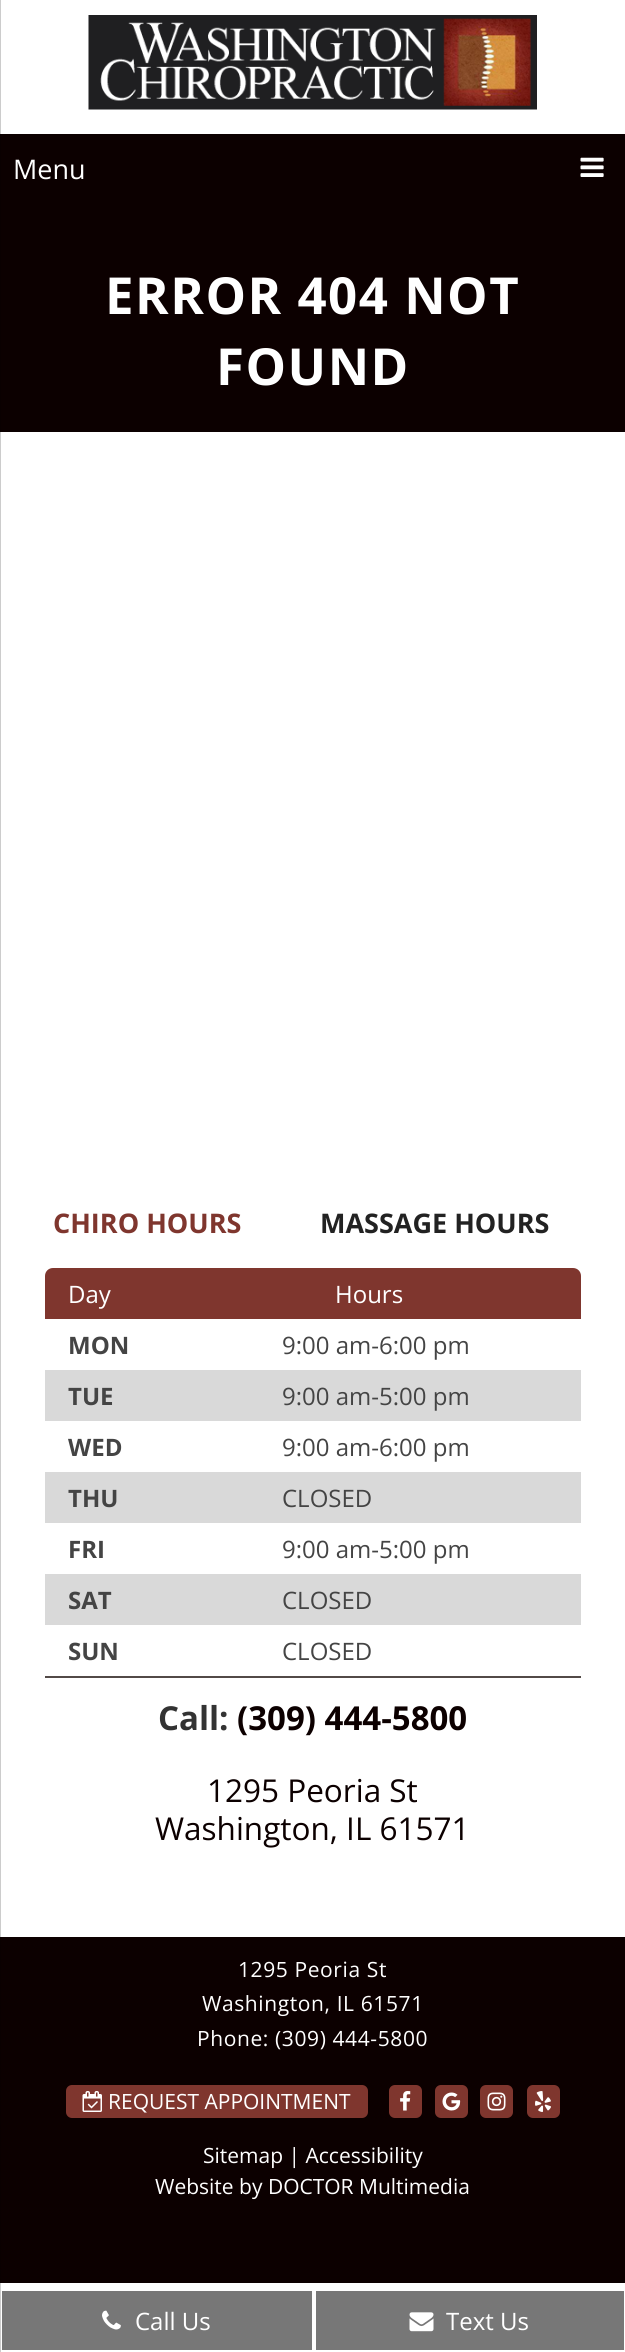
#include <cairo.h>
#include <math.h>
#include <stddef.h>


static void rgb(cairo_t *cr, int r, int g, int b)
{
	cairo_set_source_rgb(cr, r / 255.0, g / 255.0, b / 255.0);
}

static void face(cairo_t *cr, const char *family, double size, int italic, int bold)
{
	cairo_select_font_face(cr, family, italic ? CAIRO_FONT_SLANT_ITALIC : CAIRO_FONT_SLANT_NORMAL,
		bold ? CAIRO_FONT_WEIGHT_BOLD : CAIRO_FONT_WEIGHT_NORMAL);
	cairo_set_font_size(cr, size);
}

static void label(cairo_t *cr, double x, double y, const char *s)
{
	cairo_move_to(cr, x, y);
	cairo_show_text(cr, s);
}

static void tracked(cairo_t *cr, double x, double y, const char *s, double letter, double word)
{
	cairo_move_to(cr, x, y);
	while (*s) {
		char ch[5] = {0};
		int n = 0;
		do ch[n++] = *s++; while ((*s & 0xC0) == 0x80);
		cairo_show_text(cr, ch);
		cairo_rel_move_to(cr, letter + word * (*ch == ' '), 0);
	}
}

static void rect(cairo_t *cr, double x, double y, double w, double h)
{
	cairo_rectangle(cr, x, y, w, h);
	cairo_fill(cr);
}

static void rrect(cairo_t *cr, double x, double y, double w, double h, double r)
{
	cairo_new_sub_path(cr);
	cairo_arc(cr, x + w - r, y + h - r, r, 0, M_PI / 2);
	cairo_arc(cr, x + r, y + h - r, r, M_PI / 2, M_PI);
	cairo_arc(cr, x + r, y + r, r, M_PI, 1.5 * M_PI);
	cairo_arc(cr, x + w - r, y + r, r, 1.5 * M_PI, 2 * M_PI);
	cairo_close_path(cr);
}

static void image(cairo_t *cr, const char *path, double x, double y, double w, double h)
{
	cairo_surface_t *image = cairo_image_surface_create_from_png(path);
	cairo_save(cr);
	cairo_set_source_surface(cr, image, x, y);
	cairo_rectangle(cr, x, y, w, h);
	cairo_fill(cr);
	cairo_restore(cr);
	cairo_surface_destroy(image);
}

static void draw(cairo_t *cr) {
	rgb(cr, 255, 255, 255);
	cairo_paint(cr);
	rgb(cr, 12, 0, 0);
	rect(cr, 0, 134, 625, 298);
	rect(cr, 0, 1937, 625, 346);
	cairo_set_source_rgba(cr, 0, 0, 0, 0.2);
	rect(cr, 0, 0, 1, 2352);
	image(cr, "image0.png", 88, 15, 449, 95);
	face(cr, "Open Sans", 27, 0, 0);
	rgb(cr, 255, 255, 255);
	label(cr, 13, 179, "Menu");
	image(cr, "image1.png", 580, 157, 24, 20);
	face(cr, "Open Sans", 51, 0, 1);
	tracked(cr, 105, 314, "ERROR 404 NOT", 1.5, 0);
	tracked(cr, 216, 385, "FOUND", 1.5, 0);
	face(cr, "Open Sans", 27, 0, 1);
	rgb(cr, 127, 54, 46);
	label(cr, 53, 1233, "CHIRO HOURS");
	rgb(cr, 34, 34, 34);
	label(cr, 320, 1233, "MASSAGE HOURS");
	rgb(cr, 127, 54, 46);
	cairo_new_path(cr);
	cairo_move_to(cr, 53, 1268);
	cairo_line_to(cr, 573, 1268);
	cairo_curve_to(cr, 577.5, 1268, 581, 1271.5, 581, 1276);
	cairo_line_to(cr, 581, 1319);
	cairo_line_to(cr, 45, 1319);
	cairo_line_to(cr, 45, 1276);
	cairo_curve_to(cr, 45, 1271.5, 48.5, 1268, 53, 1268);
	cairo_close_path(cr);
	cairo_fill(cr);
	face(cr, "Open Sans", 24, 0, 0);
	rgb(cr, 255, 255, 255);
	label(cr, 68, 1303, "Day");
	label(cr, 335, 1303, "Hours");
	face(cr, "Open Sans", 24, 0, 1);
	rgb(cr, 68, 68, 68);
	label(cr, 68, 1354, "MON");
	face(cr, "Open Sans", 24, 0, 0);
	label(cr, 282, 1354, "9:00 am-6:00 pm");
	rgb(cr, 217, 217, 217);
	rect(cr, 45, 1370, 536, 51);
	face(cr, "Open Sans", 24, 0, 1);
	rgb(cr, 68, 68, 68);
	label(cr, 68, 1405, "TUE");
	face(cr, "Open Sans", 24, 0, 0);
	label(cr, 282, 1405, "9:00 am-5:00 pm");
	face(cr, "Open Sans", 24, 0, 1);
	label(cr, 68, 1456, "WED");
	face(cr, "Open Sans", 24, 0, 0);
	label(cr, 282, 1456, "9:00 am-6:00 pm");
	rgb(cr, 217, 217, 217);
	rect(cr, 45, 1472, 536, 51);
	face(cr, "Open Sans", 24, 0, 1);
	rgb(cr, 68, 68, 68);
	label(cr, 68, 1507, "THU");
	face(cr, "Open Sans", 24, 0, 0);
	label(cr, 282, 1507, "CLOSED");
	face(cr, "Open Sans", 24, 0, 1);
	label(cr, 68, 1558, "FRI");
	face(cr, "Open Sans", 24, 0, 0);
	label(cr, 282, 1558, "9:00 am-5:00 pm");
	rgb(cr, 217, 217, 217);
	rect(cr, 45, 1574, 536, 51);
	face(cr, "Open Sans", 24, 0, 1);
	rgb(cr, 68, 68, 68);
	label(cr, 68, 1609, "SAT");
	face(cr, "Open Sans", 24, 0, 0);
	label(cr, 282, 1609, "CLOSED");
	face(cr, "Open Sans", 24, 0, 1);
	label(cr, 68, 1660, "SUN");
	face(cr, "Open Sans", 24, 0, 0);
	label(cr, 282, 1660, "CLOSED");
	rgb(cr, 82, 74, 71);
	rect(cr, 45, 1676, 536, 2);
	face(cr, "Open Sans", 33, 0, 1);
	rgb(cr, 51, 51, 51);
	label(cr, 158, 1730, "Call:");
	rgb(cr, 12, 0, 0);
	label(cr, 237, 1730, "(309) 444-5800");
	face(cr, "Open Sans", 31.5, 0, 0);
	label(cr, 207, 1802, "1295 Peoria St");
	label(cr, 155, 1840, "Washington, IL 61571");
	face(cr, "Open Sans", 21, 0, 0);
	rgb(cr, 255, 255, 255);
	tracked(cr, 238, 1977, "1295 Peoria St", 0.6, 0);
	tracked(cr, 202, 2011, "Washington, IL 61571", 0.6, 0);
	tracked(cr, 197, 2046, "Phone: (309) 444-5800", 0.6, 0);
	rgb(cr, 127, 54, 46);
	rrect(cr, 66, 2085, 302, 33, 6);
	cairo_fill(cr);
	image(cr, "image2.png", 82, 2091, 20, 21);
	rgb(cr, 255, 255, 255);
	label(cr, 108, 2109, "REQUEST APPOINTMENT");
	rgb(cr, 127, 54, 46);
	rrect(cr, 389, 2085, 33, 33, 6);
	cairo_fill(cr);
	image(cr, "image3.png", 400, 2091, 11, 20);
	rrect(cr, 435, 2085, 33, 33, 6);
	cairo_fill(cr);
	image(cr, "image4.png", 442, 2092, 19, 19);
	rrect(cr, 480, 2085, 33, 33, 6);
	cairo_fill(cr);
	image(cr, "image5.png", 487, 2092, 19, 19);
	rrect(cr, 527, 2085, 33, 33, 6);
	cairo_fill(cr);
	image(cr, "image6.png", 535, 2091, 16, 21);
	rgb(cr, 255, 255, 255);
	label(cr, 203, 2163, "Sitemap | Accessibility");
	label(cr, 155, 2194, "Website by DOCTOR Multimedia");
	rgb(cr, 119, 119, 119);
	rect(cr, 2, 2291, 310, 59);
	image(cr, "image7.png", 102, 2310, 19, 20);
	face(cr, "Open Sans", 24, 0, 0);
	rgb(cr, 255, 255, 255);
	label(cr, 135, 2330, "Call Us");
	rgb(cr, 119, 119, 119);
	rect(cr, 316, 2291, 308, 59);
	image(cr, "image8.png", 409, 2312, 25, 20);
	rgb(cr, 255, 255, 255);
	label(cr, 446, 2330, "Text Us");
}

int main(void) {
	cairo_surface_t *surface = cairo_image_surface_create(CAIRO_FORMAT_RGB24, 625, 2352);
	cairo_t *cr = cairo_create(surface);
	cairo_font_options_t *options = cairo_font_options_create();
	cairo_font_options_set_hint_metrics(options, CAIRO_HINT_METRICS_OFF);
	cairo_font_options_set_hint_style(options, CAIRO_HINT_STYLE_NONE);
	cairo_set_font_options(cr, options);
	cairo_set_miter_limit(cr, 4);
	draw(cr);
	cairo_surface_write_to_png(surface, "render.png");
	cairo_font_options_destroy(options);
	cairo_destroy(cr);
	cairo_surface_destroy(surface);
	return 0;
}
